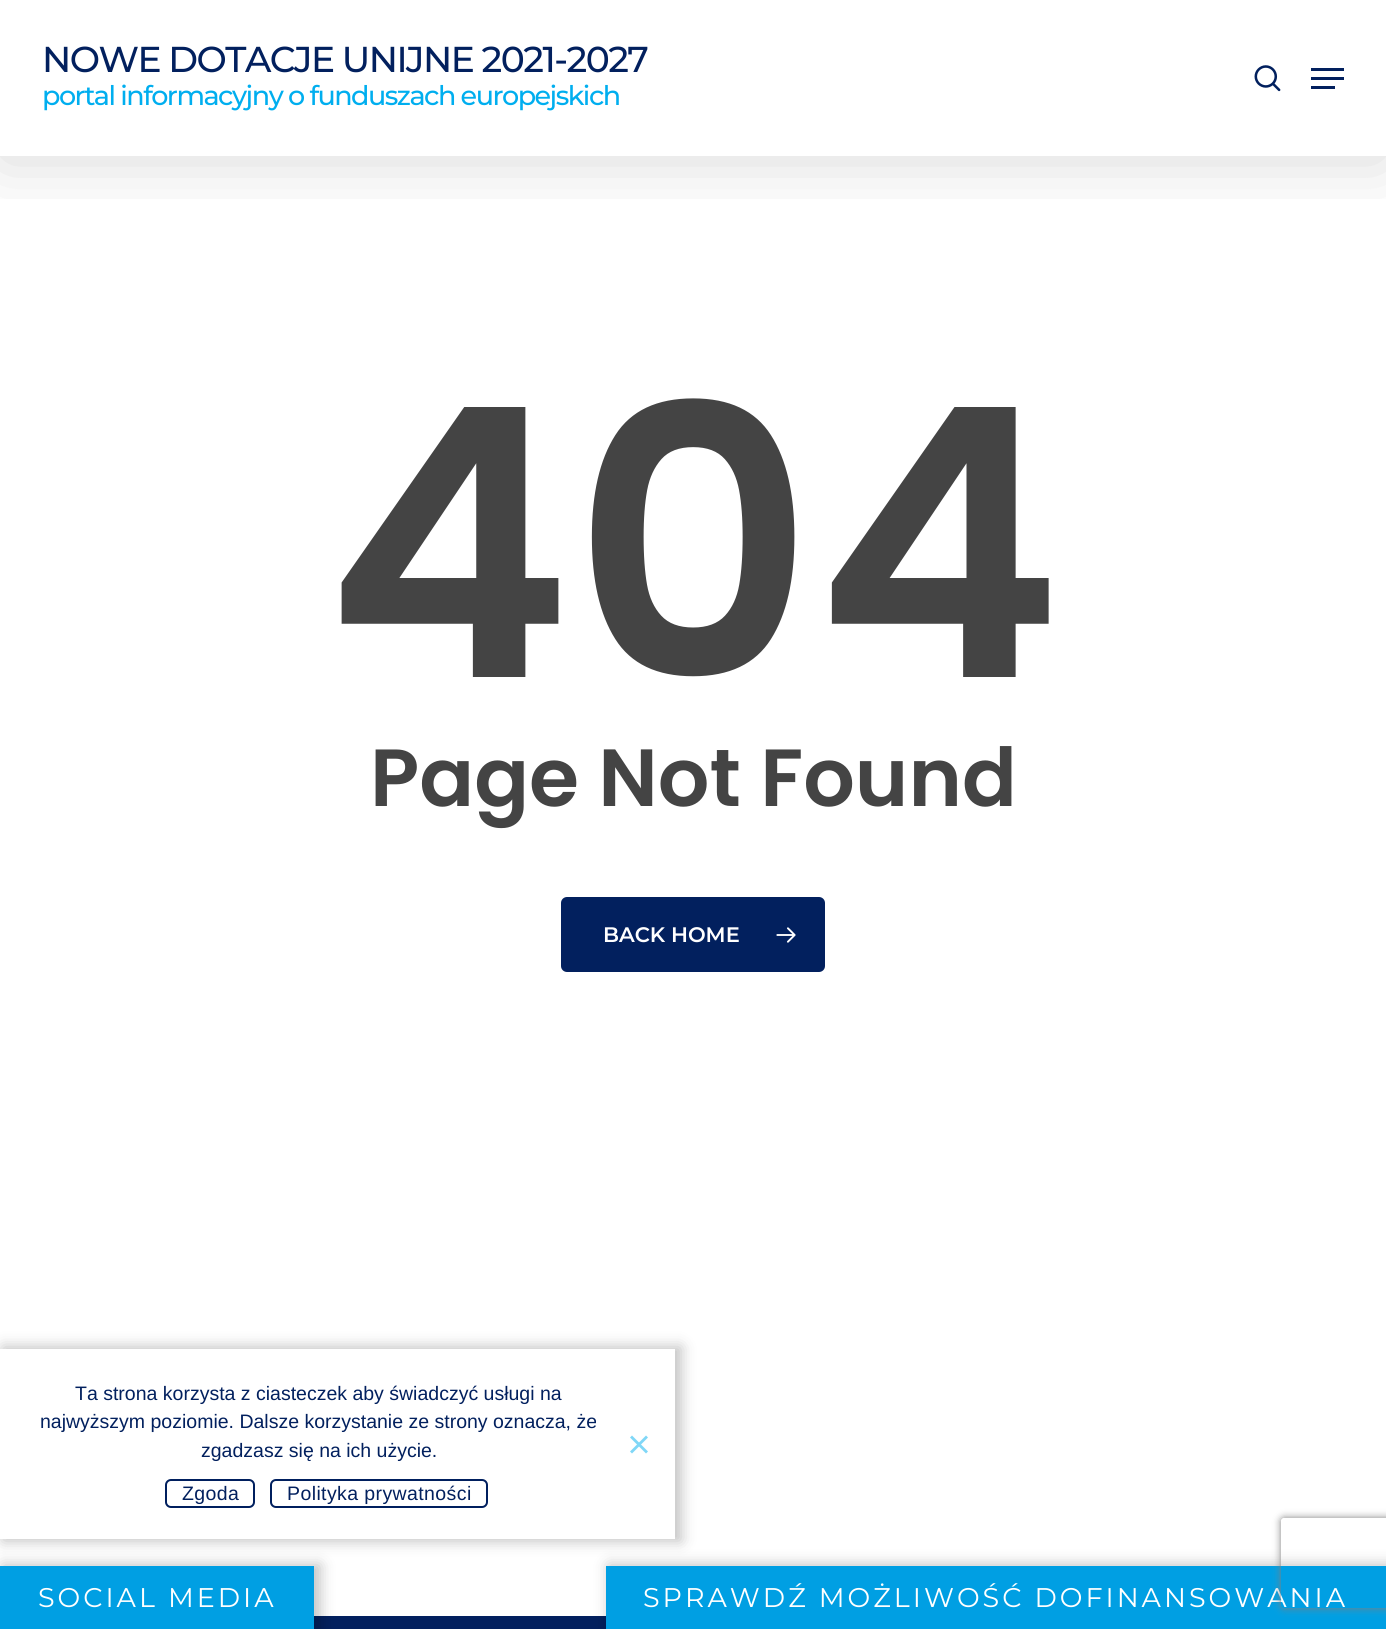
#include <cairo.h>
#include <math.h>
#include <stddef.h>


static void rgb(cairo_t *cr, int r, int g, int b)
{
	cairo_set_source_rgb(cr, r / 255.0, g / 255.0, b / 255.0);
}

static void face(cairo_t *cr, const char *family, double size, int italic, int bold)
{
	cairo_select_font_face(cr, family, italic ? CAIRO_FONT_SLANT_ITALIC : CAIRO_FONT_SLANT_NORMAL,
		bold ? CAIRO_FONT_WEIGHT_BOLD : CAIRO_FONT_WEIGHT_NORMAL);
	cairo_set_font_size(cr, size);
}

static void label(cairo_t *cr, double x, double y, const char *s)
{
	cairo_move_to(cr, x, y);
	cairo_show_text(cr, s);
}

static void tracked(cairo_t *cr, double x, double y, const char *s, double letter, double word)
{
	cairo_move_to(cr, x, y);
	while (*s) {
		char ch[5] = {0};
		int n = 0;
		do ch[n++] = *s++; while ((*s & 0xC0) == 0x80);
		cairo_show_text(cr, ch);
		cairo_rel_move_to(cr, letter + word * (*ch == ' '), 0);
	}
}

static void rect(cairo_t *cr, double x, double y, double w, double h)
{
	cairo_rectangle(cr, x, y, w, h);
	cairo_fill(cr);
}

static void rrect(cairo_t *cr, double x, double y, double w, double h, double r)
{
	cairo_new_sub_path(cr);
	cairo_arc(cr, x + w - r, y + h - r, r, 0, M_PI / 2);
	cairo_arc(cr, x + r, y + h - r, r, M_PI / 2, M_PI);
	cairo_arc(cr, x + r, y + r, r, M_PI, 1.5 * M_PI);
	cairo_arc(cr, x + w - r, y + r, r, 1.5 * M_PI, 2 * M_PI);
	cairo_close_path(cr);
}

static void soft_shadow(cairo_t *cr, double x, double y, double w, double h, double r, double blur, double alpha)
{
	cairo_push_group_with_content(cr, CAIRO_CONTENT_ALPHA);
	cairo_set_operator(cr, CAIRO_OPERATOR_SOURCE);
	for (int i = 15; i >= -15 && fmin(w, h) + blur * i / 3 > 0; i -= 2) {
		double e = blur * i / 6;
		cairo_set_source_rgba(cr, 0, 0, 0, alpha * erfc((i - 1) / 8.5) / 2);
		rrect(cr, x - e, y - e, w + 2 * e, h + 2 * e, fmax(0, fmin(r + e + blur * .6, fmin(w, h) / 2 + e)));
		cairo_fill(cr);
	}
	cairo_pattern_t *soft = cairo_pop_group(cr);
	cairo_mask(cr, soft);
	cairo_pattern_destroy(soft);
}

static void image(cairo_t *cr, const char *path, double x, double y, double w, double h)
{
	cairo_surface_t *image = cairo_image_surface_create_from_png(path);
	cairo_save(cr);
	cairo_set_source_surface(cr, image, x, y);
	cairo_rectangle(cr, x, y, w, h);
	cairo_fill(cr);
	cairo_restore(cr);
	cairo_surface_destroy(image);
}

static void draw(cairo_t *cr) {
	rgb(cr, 255, 255, 255);
	cairo_paint(cr);
	cairo_save(cr);
	cairo_rectangle(cr, 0, 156, 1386, 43);
	cairo_clip(cr);
	rgb(cr, 0, 0, 0);
	soft_shadow(cr, 0, -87, 1386, 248, 0, 34, 0.15);
	cairo_restore(cr);
	face(cr, "Montserrat Medium", 36, 0, 0);
	rgb(cr, 2, 32, 94);
	tracked(cr, 42, 72, "NOWE DOTACJE UNIJNE 2021-2027", -1.5, 0);
	face(cr, "Montserrat Medium", 27, 0, 0);
	rgb(cr, 0, 174, 239);
	tracked(cr, 42, 105, "portal informacyjny o funduszach europejskich", -1.5, 0);
	image(cr, "image0.png", 1254, 65, 27, 27);
	rgb(cr, 2, 32, 94);
	rect(cr, 1311, 68, 33, 3);
	rect(cr, 1311, 86, 24, 3);
	rect(cr, 1311, 77, 33, 3);
	face(cr, "Poppins SemiBold", 375, 0, 0);
	rgb(cr, 68, 68, 68);
	label(cr, 324, 677, "404");
	face(cr, "Poppins SemiBold", 81, 0, 0);
	label(cr, 370, 806, "Page Not Found");
	rgb(cr, 2, 32, 94);
	rrect(cr, 561, 897, 264, 75, 6);
	cairo_fill(cr);
	face(cr, "Montserrat SemiBold", 21, 0, 0);
	rgb(cr, 255, 255, 255);
	label(cr, 603, 942, "BACK HOME");
	image(cr, "image1.png", 776, 927, 20, 16);
	rgb(cr, 2, 32, 94);
	rect(cr, 314, 1616, 292, 13);
	rgb(cr, 0, 0, 0);
	soft_shadow(cr, 3, 1565, 317, 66, 0, 7.5, 0.25);
	rgb(cr, 0, 159, 227);
	rect(cr, 0, 1566, 314, 63);
	face(cr, "Montserrat", 27, 0, 0);
	rgb(cr, 255, 255, 255);
	tracked(cr, 38, 1607, "SOCIAL MEDIA", 3, 0);
	rgb(cr, 0, 0, 0);
	soft_shadow(cr, 609, 1565, 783, 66, 0, 7.5, 0.25);
	rgb(cr, 0, 159, 227);
	rect(cr, 606, 1566, 780, 63);
	rgb(cr, 255, 255, 255);
	tracked(cr, 643, 1607, "SPRAWDŹ MOŻLIWOŚĆ DOFINANSOWANIA", 3, 0);
	cairo_save(cr);
	cairo_set_fill_rule(cr, CAIRO_FILL_RULE_EVEN_ODD);
	cairo_new_path(cr);
	cairo_move_to(cr, 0, 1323);
	cairo_line_to(cr, 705, 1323);
	cairo_line_to(cr, 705, 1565);
	cairo_line_to(cr, 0, 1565);
	cairo_close_path(cr);
	cairo_move_to(cr, 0, 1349);
	cairo_line_to(cr, 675, 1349);
	cairo_line_to(cr, 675, 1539);
	cairo_line_to(cr, 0, 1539);
	cairo_close_path(cr);
	cairo_clip(cr);
	rgb(cr, 0, 0, 0);
	soft_shadow(cr, 3, 1347, 678, 194, 0, 7.5, 0.25);
	cairo_restore(cr);
	face(cr, "Liberation Sans", 19.5, 0, 0);
	rgb(cr, 2, 32, 94);
	label(cr, 75, 1400, "Ta strona korzysta z ciasteczek aby świadczyć usługi na");
	label(cr, 40, 1428, "najwyższym poziomie. Dalsze korzystanie ze strony oznacza, że");
	label(cr, 201, 1457, "zgadzasz się na ich użycie.");
	rgb(cr, 128, 215, 247);
	cairo_new_path(cr);
	cairo_move_to(cr, 646, 1435.5);
	cairo_line_to(cr, 648, 1437.5);
	cairo_line_to(cr, 632, 1453.5);
	cairo_line_to(cr, 630, 1451.5);
	cairo_close_path(cr);
	cairo_fill(cr);
	cairo_new_path(cr);
	cairo_move_to(cr, 630, 1437.5);
	cairo_line_to(cr, 632, 1435.5);
	cairo_line_to(cr, 648, 1451.5);
	cairo_line_to(cr, 646, 1453.5);
	cairo_close_path(cr);
	cairo_fill(cr);
	rrect(cr, 166, 1480, 88, 27, 5);
	rgb(cr, 0, 31, 94);
	cairo_stroke(cr);
	rgb(cr, 2, 32, 94);
	tracked(cr, 182, 1500, "Zgoda", 0.4, 0);
	rrect(cr, 271, 1480, 216, 27, 5);
	rgb(cr, 0, 31, 94);
	cairo_stroke(cr);
	rgb(cr, 2, 32, 94);
	tracked(cr, 287, 1500, "Polityka prywatności", 0.4, 0);
	cairo_save(cr);
	cairo_set_fill_rule(cr, CAIRO_FILL_RULE_EVEN_ODD);
	cairo_new_path(cr);
	cairo_move_to(cr, 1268, 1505);
	cairo_line_to(cr, 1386, 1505);
	cairo_line_to(cr, 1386, 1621);
	cairo_line_to(cr, 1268, 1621);
	cairo_close_path(cr);
	cairo_move_to(cr, 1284, 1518);
	cairo_line_to(cr, 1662, 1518);
	cairo_curve_to(cr, 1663.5, 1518, 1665, 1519.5, 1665, 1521);
	cairo_line_to(cr, 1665, 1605);
	cairo_curve_to(cr, 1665, 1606.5, 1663.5, 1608, 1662, 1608);
	cairo_line_to(cr, 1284, 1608);
	cairo_curve_to(cr, 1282.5, 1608, 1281, 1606.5, 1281, 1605);
	cairo_line_to(cr, 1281, 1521);
	cairo_curve_to(cr, 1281, 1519.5, 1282.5, 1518, 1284, 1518);
	cairo_close_path(cr);
	cairo_clip(cr);
	rgb(cr, 128, 128, 128);
	soft_shadow(cr, 1281, 1518, 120, 90, 3, 4, 1);
	cairo_restore(cr);
}

int main(void) {
	cairo_surface_t *surface = cairo_image_surface_create(CAIRO_FORMAT_RGB24, 1386, 1629);
	cairo_t *cr = cairo_create(surface);
	cairo_font_options_t *options = cairo_font_options_create();
	cairo_font_options_set_hint_metrics(options, CAIRO_HINT_METRICS_OFF);
	cairo_font_options_set_hint_style(options, CAIRO_HINT_STYLE_NONE);
	cairo_set_font_options(cr, options);
	cairo_set_miter_limit(cr, 4);
	draw(cr);
	cairo_surface_write_to_png(surface, "render.png");
	cairo_font_options_destroy(options);
	cairo_destroy(cr);
	cairo_surface_destroy(surface);
	return 0;
}
